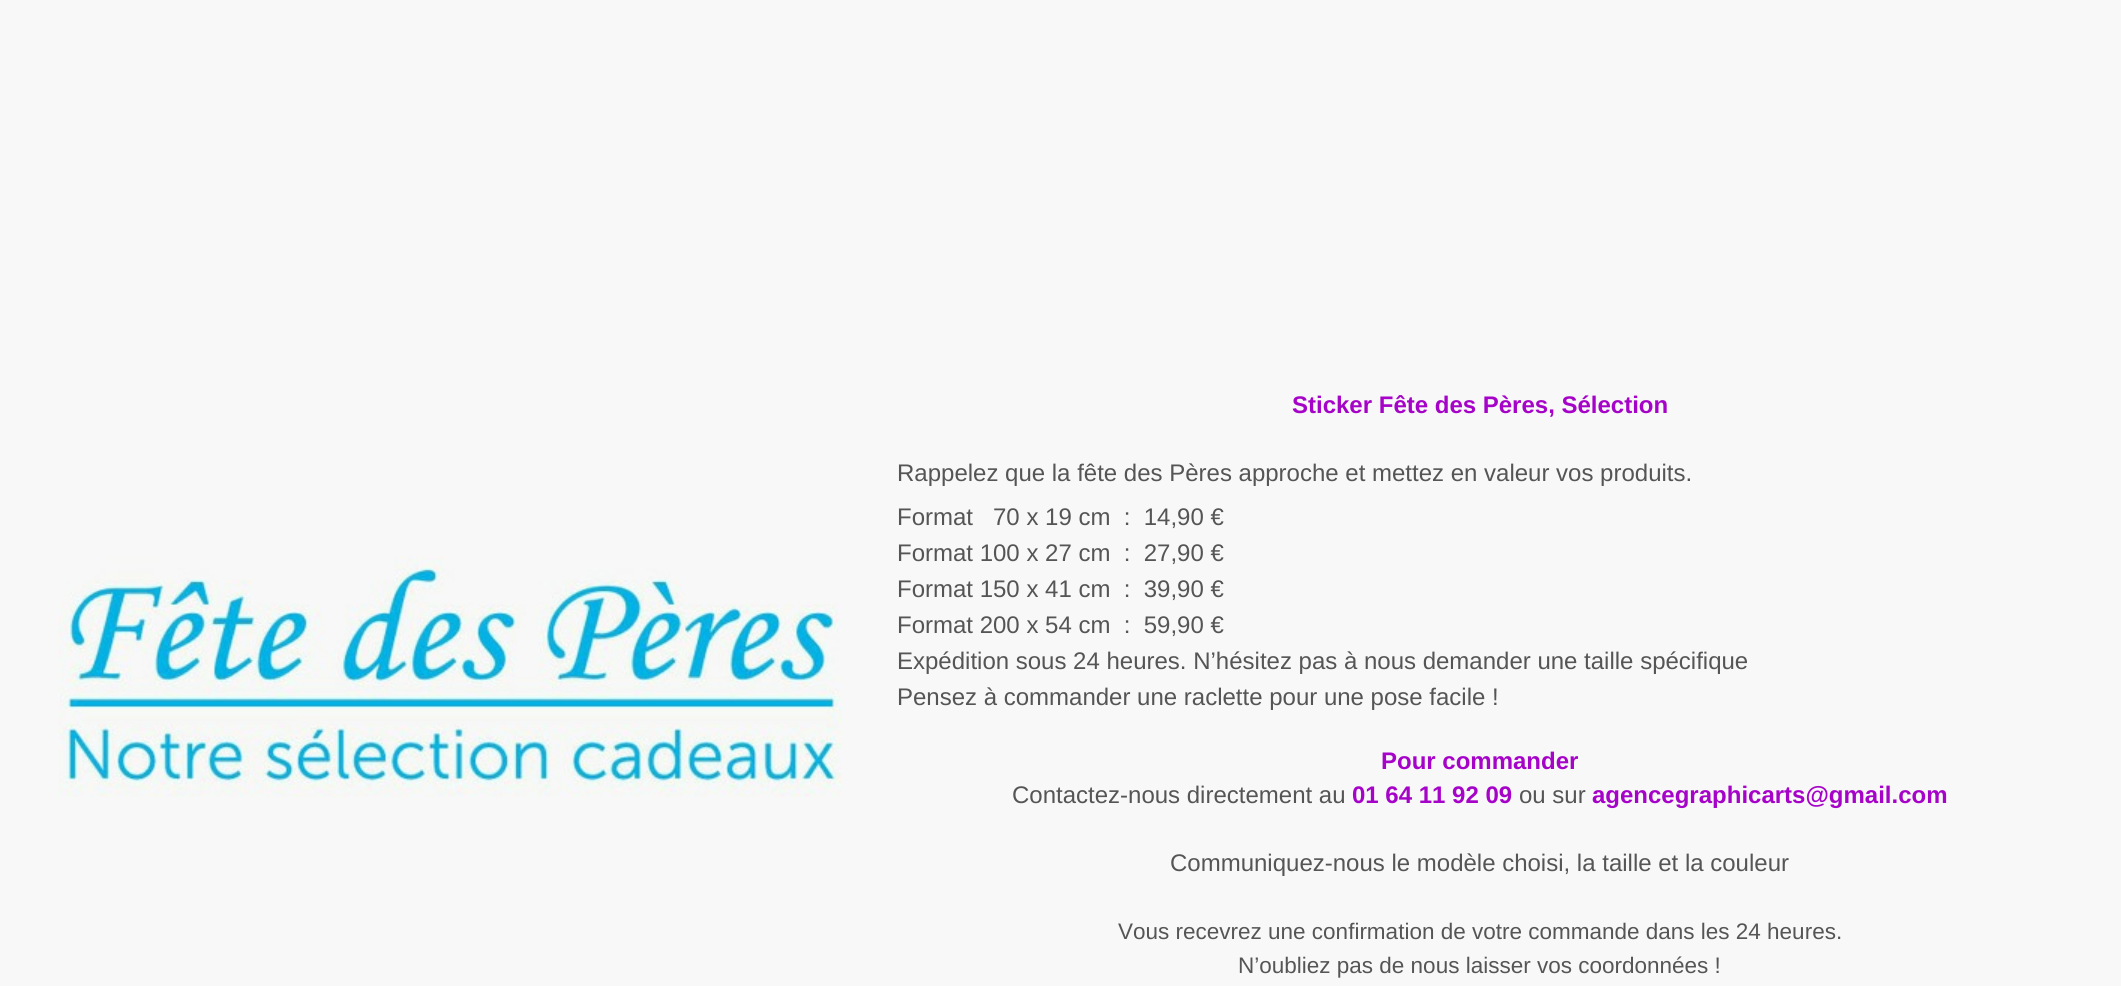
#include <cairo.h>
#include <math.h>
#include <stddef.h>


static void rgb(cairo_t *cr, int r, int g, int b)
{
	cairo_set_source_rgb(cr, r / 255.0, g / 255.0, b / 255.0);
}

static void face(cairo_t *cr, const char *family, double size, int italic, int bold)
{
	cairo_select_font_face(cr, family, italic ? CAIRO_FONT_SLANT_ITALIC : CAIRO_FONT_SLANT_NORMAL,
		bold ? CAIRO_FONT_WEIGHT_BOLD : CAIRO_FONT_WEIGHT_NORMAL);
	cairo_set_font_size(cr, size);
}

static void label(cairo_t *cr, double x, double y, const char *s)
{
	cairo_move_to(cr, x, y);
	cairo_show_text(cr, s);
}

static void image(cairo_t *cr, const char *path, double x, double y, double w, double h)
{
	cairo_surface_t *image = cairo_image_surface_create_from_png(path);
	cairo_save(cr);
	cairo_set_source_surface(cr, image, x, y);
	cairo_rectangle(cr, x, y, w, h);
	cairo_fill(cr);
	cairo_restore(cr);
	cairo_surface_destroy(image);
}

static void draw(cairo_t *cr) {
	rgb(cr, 248, 248, 248);
	cairo_paint(cr);
	image(cr, "image0.png", 58, 556, 784, 241);
	face(cr, "Liberation Sans", 24, 0, 1);
	rgb(cr, 166, 3, 200);
	label(cr, 1292, 413, "Sticker Fête des Pères, Sélection");
	face(cr, "Liberation Sans", 24, 0, 0);
	rgb(cr, 85, 85, 85);
	label(cr, 897, 481, "Rappelez que la fête des Pères approche et mettez en valeur vos produits.");
	label(cr, 897, 525, "Format   70 x 19 cm  :  14,90 €");
	label(cr, 897, 561, "Format 100 x 27 cm  :  27,90 €");
	label(cr, 897, 597, "Format 150 x 41 cm  :  39,90 €");
	label(cr, 897, 633, "Format 200 x 54 cm  :  59,90 €");
	label(cr, 897, 669, "Expédition sous 24 heures. N’hésitez pas à nous demander une taille spécifique");
	label(cr, 897, 705, "Pensez à commander une raclette pour une pose facile !");
	face(cr, "Liberation Sans", 24, 0, 1);
	rgb(cr, 166, 3, 200);
	label(cr, 1381, 769, "Pour commander");
	face(cr, "Liberation Sans", 24, 0, 0);
	rgb(cr, 85, 85, 85);
	label(cr, 1012, 803, "Contactez-nous directement au");
	face(cr, "Liberation Sans", 24, 0, 1);
	rgb(cr, 166, 3, 200);
	label(cr, 1352, 803, "01 64 11 92 09");
	face(cr, "Liberation Sans", 24, 0, 0);
	rgb(cr, 85, 85, 85);
	label(cr, 1519, 803, "ou sur");
	face(cr, "Liberation Sans", 24, 0, 1);
	rgb(cr, 166, 3, 200);
	label(cr, 1592, 803, "agencegraphicarts@gmail.com");
	face(cr, "Liberation Sans", 24, 0, 0);
	rgb(cr, 85, 85, 85);
	label(cr, 1170, 871, "Communiquez-nous le modèle choisi, la taille et la couleur");
	face(cr, "Liberation Sans", 22.5, 0, 0);
	label(cr, 1118, 939, "Vous recevrez une confirmation de votre commande dans les 24 heures.");
	label(cr, 1238, 973, "N’oubliez pas de nous laisser vos coordonnées !");
}

int main(void) {
	cairo_surface_t *surface = cairo_image_surface_create(CAIRO_FORMAT_RGB24, 2121, 986);
	cairo_t *cr = cairo_create(surface);
	cairo_font_options_t *options = cairo_font_options_create();
	cairo_font_options_set_hint_metrics(options, CAIRO_HINT_METRICS_OFF);
	cairo_font_options_set_hint_style(options, CAIRO_HINT_STYLE_NONE);
	cairo_set_font_options(cr, options);
	cairo_set_miter_limit(cr, 4);
	draw(cr);
	cairo_surface_write_to_png(surface, "render.png");
	cairo_font_options_destroy(options);
	cairo_destroy(cr);
	cairo_surface_destroy(surface);
	return 0;
}
